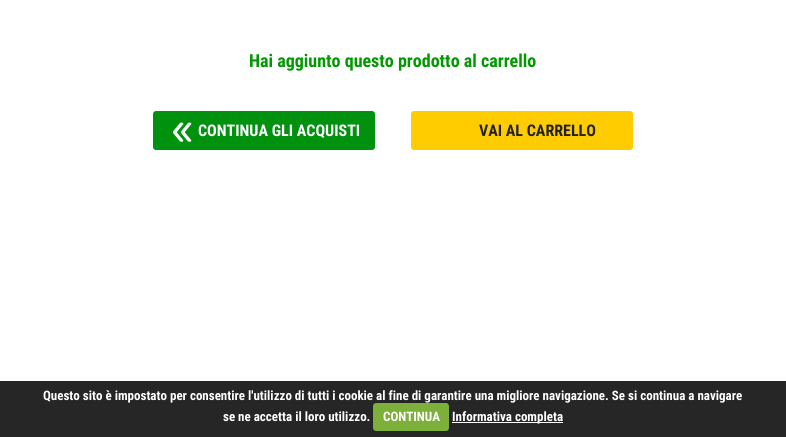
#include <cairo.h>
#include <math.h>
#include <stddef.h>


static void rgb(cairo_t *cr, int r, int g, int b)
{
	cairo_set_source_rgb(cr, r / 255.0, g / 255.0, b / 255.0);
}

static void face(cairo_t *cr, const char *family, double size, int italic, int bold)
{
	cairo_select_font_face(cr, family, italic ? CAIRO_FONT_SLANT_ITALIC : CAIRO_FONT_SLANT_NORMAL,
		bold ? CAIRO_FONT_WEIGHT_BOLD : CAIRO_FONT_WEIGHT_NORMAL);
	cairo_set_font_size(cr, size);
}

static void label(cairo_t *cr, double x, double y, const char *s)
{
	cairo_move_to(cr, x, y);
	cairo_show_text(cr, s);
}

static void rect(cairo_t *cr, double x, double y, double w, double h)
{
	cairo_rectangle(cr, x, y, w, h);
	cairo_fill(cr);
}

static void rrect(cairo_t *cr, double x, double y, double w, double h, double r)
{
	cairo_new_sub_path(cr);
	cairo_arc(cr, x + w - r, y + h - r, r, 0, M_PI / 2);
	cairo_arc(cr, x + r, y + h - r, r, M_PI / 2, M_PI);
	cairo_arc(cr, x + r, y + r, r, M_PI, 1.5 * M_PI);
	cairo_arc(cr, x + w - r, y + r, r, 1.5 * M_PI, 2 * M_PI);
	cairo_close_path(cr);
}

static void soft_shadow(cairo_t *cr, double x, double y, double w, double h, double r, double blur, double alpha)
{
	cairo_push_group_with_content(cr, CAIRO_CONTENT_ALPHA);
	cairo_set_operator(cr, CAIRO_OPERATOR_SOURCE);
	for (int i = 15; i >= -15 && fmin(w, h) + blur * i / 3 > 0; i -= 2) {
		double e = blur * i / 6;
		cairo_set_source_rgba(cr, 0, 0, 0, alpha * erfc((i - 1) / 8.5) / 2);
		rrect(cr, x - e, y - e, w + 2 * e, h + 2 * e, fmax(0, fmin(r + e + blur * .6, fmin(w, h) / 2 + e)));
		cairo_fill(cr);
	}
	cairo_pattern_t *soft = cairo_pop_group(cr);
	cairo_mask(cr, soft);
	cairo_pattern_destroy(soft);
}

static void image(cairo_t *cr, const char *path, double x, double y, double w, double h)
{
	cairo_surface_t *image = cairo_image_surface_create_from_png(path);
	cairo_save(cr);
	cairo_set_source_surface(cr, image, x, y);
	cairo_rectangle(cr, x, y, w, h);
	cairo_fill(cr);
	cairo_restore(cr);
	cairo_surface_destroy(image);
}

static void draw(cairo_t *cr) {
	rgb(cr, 255, 255, 255);
	cairo_paint(cr);
	face(cr, "Roboto Condensed", 18, 0, 1);
	rgb(cr, 0, 153, 0);
	label(cr, 249, 67, "Hai aggiunto questo prodotto al carrello");
	rgb(cr, 0, 146, 14);
	rrect(cr, 153, 111, 222, 39, 3);
	cairo_fill(cr);
	image(cr, "image0.png", 173, 122, 19, 20);
	face(cr, "Roboto Condensed", 16, 0, 1);
	rgb(cr, 255, 255, 255);
	label(cr, 198, 136, "CONTINUA GLI ACQUISTI");
	rgb(cr, 255, 204, 0);
	rrect(cr, 411, 111, 222, 39, 3);
	cairo_fill(cr);
	rgb(cr, 34, 34, 34);
	label(cr, 479, 136, "VAI AL CARRELLO");
	rgb(cr, 38, 38, 38);
	rect(cr, 0, 381, 786, 56);
	face(cr, "Roboto Condensed", 13, 0, 1);
	rgb(cr, 255, 255, 255);
	label(cr, 43, 400, "Questo sito è impostato per consentire l'utilizzo di tutti i cookie al fine di garantire una migliore navigazione. Se si continua a navigare");
	label(cr, 223, 421, "se ne accetta il loro utilizzo.");
	rgb(cr, 0, 0, 0);
	soft_shadow(cr, 373, 403, 76, 28, 3, 1, 0.25);
	rgb(cr, 125, 175, 59);
	rrect(cr, 373, 403, 76, 28, 3);
	cairo_fill(cr);
	rgb(cr, 255, 255, 255);
	label(cr, 383, 421, "CONTINUA");
	rect(cr, 452, 422, 111, 1);
	label(cr, 452, 421, "Informativa completa");
}

int main(void) {
	cairo_surface_t *surface = cairo_image_surface_create(CAIRO_FORMAT_RGB24, 786, 437);
	cairo_t *cr = cairo_create(surface);
	cairo_font_options_t *options = cairo_font_options_create();
	cairo_font_options_set_hint_metrics(options, CAIRO_HINT_METRICS_OFF);
	cairo_font_options_set_hint_style(options, CAIRO_HINT_STYLE_NONE);
	cairo_set_font_options(cr, options);
	cairo_set_miter_limit(cr, 4);
	draw(cr);
	cairo_surface_write_to_png(surface, "render.png");
	cairo_font_options_destroy(options);
	cairo_destroy(cr);
	cairo_surface_destroy(surface);
	return 0;
}
